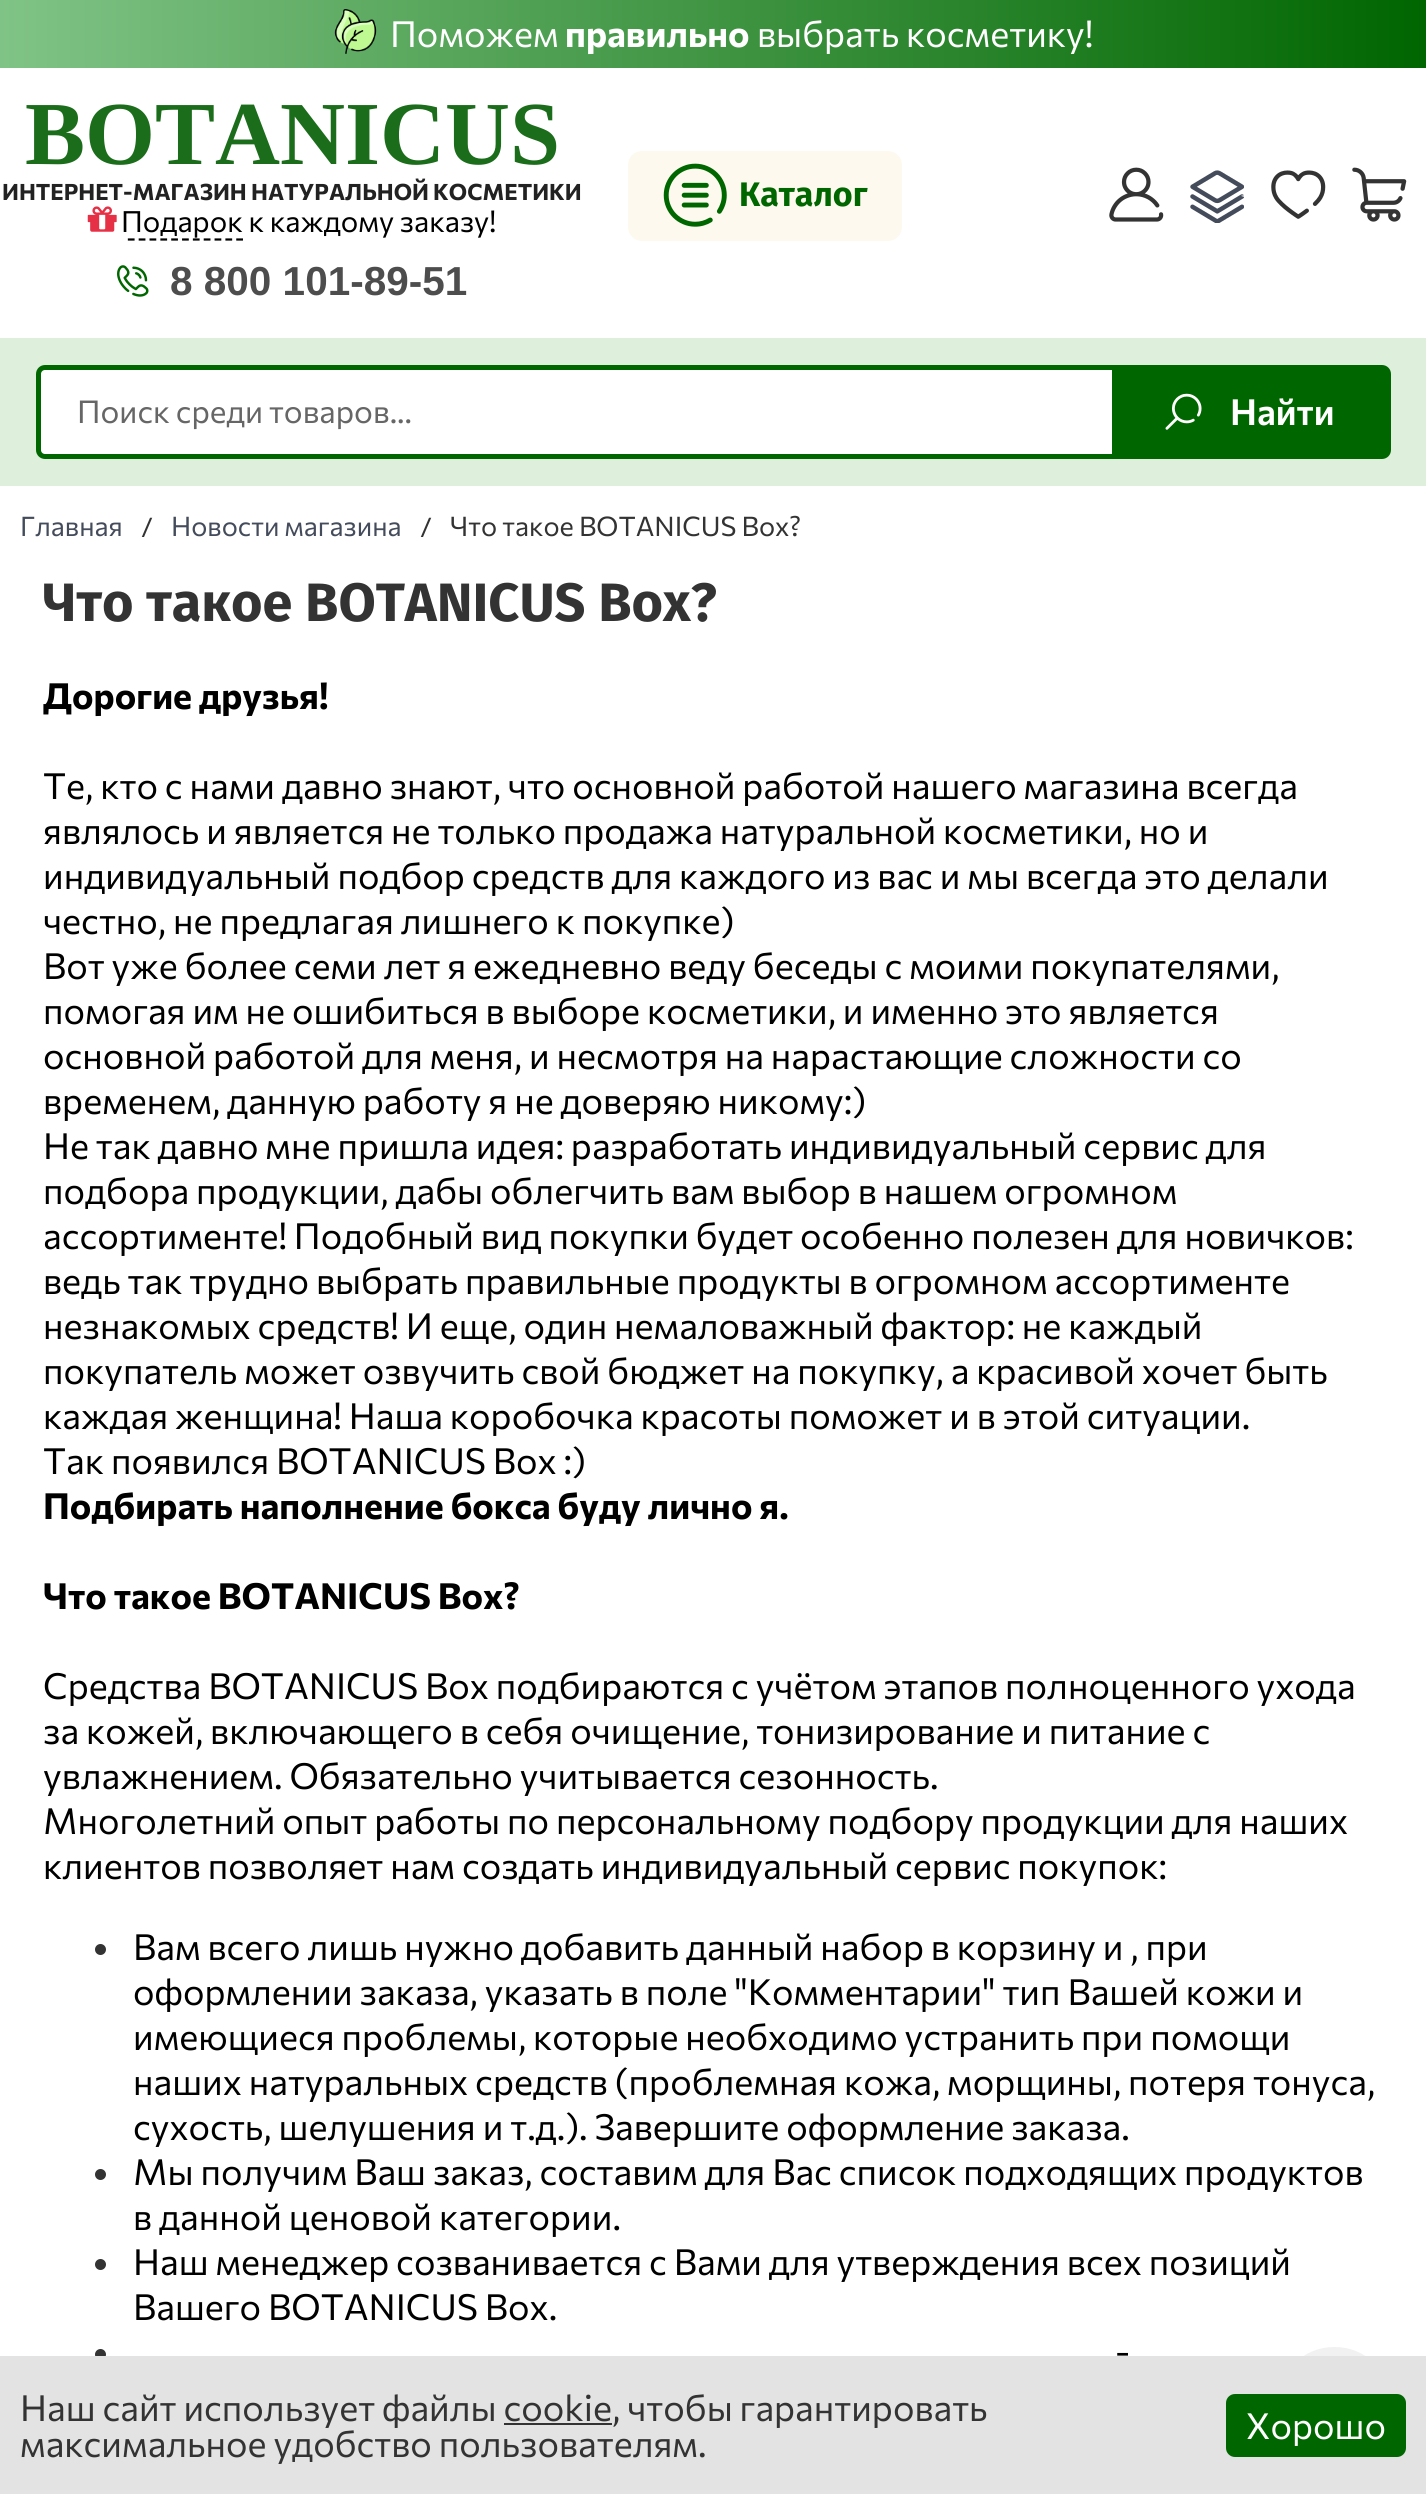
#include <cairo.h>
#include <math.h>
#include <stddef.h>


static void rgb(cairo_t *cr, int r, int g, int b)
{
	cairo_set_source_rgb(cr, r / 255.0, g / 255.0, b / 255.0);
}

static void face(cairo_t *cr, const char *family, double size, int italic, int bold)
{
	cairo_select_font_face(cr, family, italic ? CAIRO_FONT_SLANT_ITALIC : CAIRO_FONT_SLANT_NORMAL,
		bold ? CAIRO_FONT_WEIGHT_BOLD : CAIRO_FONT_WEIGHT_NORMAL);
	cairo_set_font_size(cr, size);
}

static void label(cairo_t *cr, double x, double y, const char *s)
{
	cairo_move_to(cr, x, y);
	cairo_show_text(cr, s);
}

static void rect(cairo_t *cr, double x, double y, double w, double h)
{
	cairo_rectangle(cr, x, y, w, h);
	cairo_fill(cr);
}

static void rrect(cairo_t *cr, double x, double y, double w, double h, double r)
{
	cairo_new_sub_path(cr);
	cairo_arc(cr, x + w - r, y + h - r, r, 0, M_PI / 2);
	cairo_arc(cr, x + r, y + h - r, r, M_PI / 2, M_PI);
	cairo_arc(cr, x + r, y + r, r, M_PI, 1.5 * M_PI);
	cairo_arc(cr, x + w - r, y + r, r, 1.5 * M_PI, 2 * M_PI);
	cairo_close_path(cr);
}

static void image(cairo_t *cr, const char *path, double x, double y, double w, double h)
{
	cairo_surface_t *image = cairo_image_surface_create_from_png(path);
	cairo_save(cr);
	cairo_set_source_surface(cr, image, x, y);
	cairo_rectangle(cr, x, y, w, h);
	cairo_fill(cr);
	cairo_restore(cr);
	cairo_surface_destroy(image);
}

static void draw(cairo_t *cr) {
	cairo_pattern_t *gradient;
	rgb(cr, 255, 255, 255);
	cairo_paint(cr);
	gradient = cairo_pattern_create_linear(0, 34, 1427, 34);
	cairo_pattern_add_color_stop_rgba(gradient, 0, 0.502, 0.765, 0.525, 1);
	cairo_pattern_add_color_stop_rgba(gradient, 1, 0, 0.4, 0, 1);
	cairo_set_source(cr, gradient);
	cairo_pattern_destroy(gradient);
	rect(cr, 0, 0, 1426, 68);
	image(cr, "image0.png", 334, 9, 43, 45);
	face(cr, "Commissioner", 36, 0, 0);
	rgb(cr, 255, 255, 255);
	label(cr, 390, 47, "Поможем");
	face(cr, "Commissioner", 36, 0, 1);
	label(cr, 565, 47, "правильно");
	face(cr, "Commissioner", 36, 0, 0);
	label(cr, 757, 47, "выбрать косметику!");
	face(cr, "Liberation Serif", 90, 0, 1);
	rgb(cr, 27, 109, 27);
	label(cr, 25, 164, "BOTANICUS");
	face(cr, "Commissioner", 22.5, 0, 1);
	rgb(cr, 34, 34, 34);
	label(cr, 2, 200, "ИНТЕРНЕТ-МАГАЗИН НАТУРАЛЬНОЙ КОСМЕТИКИ");
	cairo_new_path(cr);
	cairo_move_to(cr, 117, 239.5);
	cairo_line_to(cr, 243, 239.5);
	rgb(cr, 0, 0, 0);
	cairo_set_line_width(cr, 2.2);
	cairo_set_dash(cr, (double[]){6.75, 4.09}, 2, 0);
	cairo_stroke(cr);
	rgb(cr, 255, 255, 255);
	rect(cr, 117, 238, 9, 3);
	image(cr, "image1.png", 87, 206, 30, 26);
	face(cr, "Commissioner", 29.25, 0, 0);
	rgb(cr, 0, 0, 0);
	label(cr, 121, 232, "Подарок к каждому заказу!");
	image(cr, "image2.png", 117, 265, 32, 32);
	face(cr, "Liberation Sans", 40.5, 0, 1);
	rgb(cr, 77, 77, 77);
	label(cr, 170, 295, "8 800 101-89-51");
	rgb(cr, 254, 249, 239);
	rrect(cr, 628, 151, 274, 90, 14);
	cairo_fill(cr);
	image(cr, "image3.png", 663, 163, 64, 64);
	face(cr, "Fira Sans", 34, 0, 1);
	rgb(cr, 0, 102, 0);
	label(cr, 739, 206, "Каталог");
	image(cr, "image4.png", 1109, 167, 55, 55);
	image(cr, "image5.png", 1190, 170, 54, 53);
	image(cr, "image6.png", 1271, 170, 55, 49);
	image(cr, "image7.png", 1352, 167, 55, 55);
	rgb(cr, 222, 240, 219);
	rect(cr, 0, 338, 1426, 148);
	rgb(cr, 255, 255, 255);
	rrect(cr, 38.5, 367.5, 1350, 89, 6.5);
	cairo_fill_preserve(cr);
	rgb(cr, 0, 102, 0);
	cairo_set_line_width(cr, 5);
	cairo_set_dash(cr, NULL, 0, 0);
	cairo_stroke(cr);
	face(cr, "Commissioner", 31.5, 0, 0);
	rgb(cr, 102, 102, 102);
	label(cr, 77, 423, "Поиск среди товаров...");
	rgb(cr, 0, 102, 0);
	cairo_new_path(cr);
	cairo_move_to(cr, 1112, 367);
	cairo_line_to(cr, 1383, 367);
	cairo_curve_to(cr, 1386, 367, 1388, 369, 1388, 372);
	cairo_line_to(cr, 1388, 452);
	cairo_curve_to(cr, 1388, 455, 1386, 457, 1383, 457);
	cairo_line_to(cr, 1112, 457);
	cairo_close_path(cr);
	cairo_fill(cr);
	image(cr, "image8.png", 1165, 393, 37, 37);
	face(cr, "Commissioner SemiBold", 36, 0, 0);
	rgb(cr, 255, 255, 255);
	label(cr, 1230, 425, "Найти");
	face(cr, "Commissioner", 27, 0, 0);
	rgb(cr, 68, 75, 91);
	label(cr, 20, 536, "Главная");
	rgb(cr, 51, 51, 51);
	label(cr, 141, 537, "/");
	rgb(cr, 68, 75, 91);
	label(cr, 171, 536, "Новости магазина");
	rgb(cr, 51, 51, 51);
	label(cr, 420, 537, "/");
	label(cr, 450, 536, "Что такое BOTANICUS Box?");
	face(cr, "Fira Sans", 54, 0, 1);
	label(cr, 43, 621, "Что такое BOTANICUS Box?");
	face(cr, "Commissioner", 36, 0, 1);
	rgb(cr, 0, 0, 0);
	label(cr, 43, 709, "Дорогие друзья!");
	face(cr, "Commissioner", 36, 0, 0);
	label(cr, 43, 799, "Те, кто с нами давно знают, что основной работой нашего магазина всегда");
	label(cr, 43, 844, "являлось и является не только продажа натуральной косметики, но и");
	label(cr, 43, 889, "индивидуальный подбор средств для каждого из вас и мы всегда это делали");
	label(cr, 43, 934, "честно, не предлагая лишнего к покупке)");
	label(cr, 43, 979, "Вот уже более семи лет я ежедневно веду беседы с моими покупателями,");
	label(cr, 43, 1024, "помогая им не ошибиться в выборе косметики, и именно это является");
	label(cr, 43, 1069, "основной работой для меня, и несмотря на нарастающие сложности со");
	label(cr, 43, 1114, "временем, данную работу я не доверяю никому:)");
	label(cr, 43, 1159, "Не так давно мне пришла идея: разработать индивидуальный сервис для");
	label(cr, 43, 1204, "подбора продукции, дабы облегчить вам выбор в нашем огромном");
	label(cr, 43, 1249, "ассортименте! Подобный вид покупки будет особенно полезен для новичков:");
	label(cr, 43, 1294, "ведь так трудно выбрать правильные продукты в огромном ассортименте");
	label(cr, 43, 1339, "незнакомых средств! И еще, один немаловажный фактор: не каждый");
	label(cr, 43, 1384, "покупатель может озвучить свой бюджет на покупку, а красивой хочет быть");
	label(cr, 43, 1429, "каждая женщина! Наша коробочка красоты поможет и в этой ситуации.");
	label(cr, 43, 1474, "Так появился BOTANICUS Box :)");
	face(cr, "Commissioner", 36, 0, 1);
	label(cr, 43, 1519, "Подбирать наполнение бокса буду лично я.");
	label(cr, 43, 1609, "Что такое BOTANICUS Box?");
	face(cr, "Commissioner", 36, 0, 0);
	label(cr, 43, 1699, "Средства BOTANICUS Box подбираются с учётом этапов полноценного ухода");
	label(cr, 43, 1744, "за кожей, включающего в себя очищение, тонизирование и питание с");
	label(cr, 43, 1789, "увлажнением. Обязательно учитывается сезонность.");
	label(cr, 43, 1834, "Многолетний опыт работы по персональному подбору продукции для наших");
	label(cr, 43, 1879, "клиентов позволяет нам создать индивидуальный сервис покупок:");
	rgb(cr, 51, 51, 51);
	cairo_new_path(cr);
	cairo_arc(cr, 100.5, 1949.5, 5.5, 0, 2 * M_PI);
	cairo_fill(cr);
	rgb(cr, 0, 0, 0);
	label(cr, 133, 1960, "Вам всего лишь нужно добавить данный набор в корзину и , при");
	label(cr, 133, 2005, "оформлении заказа, указать в поле \"Комментарии\" тип Вашей кожи и");
	label(cr, 133, 2050, "имеющиеся проблемы, которые необходимо устранить при помощи");
	label(cr, 133, 2095, "наших натуральных средств (проблемная кожа, морщины, потеря тонуса,");
	label(cr, 133, 2140, "сухость, шелушения и т.д.). Завершите оформление заказа.");
	rgb(cr, 51, 51, 51);
	cairo_new_path(cr);
	cairo_arc(cr, 100.5, 2174.5, 5.5, 0, 2 * M_PI);
	cairo_fill(cr);
	rgb(cr, 0, 0, 0);
	label(cr, 133, 2185, "Мы получим Ваш заказ, составим для Вас список подходящих продуктов");
	label(cr, 133, 2230, "в данной ценовой категории.");
	rgb(cr, 51, 51, 51);
	cairo_new_path(cr);
	cairo_arc(cr, 100.5, 2264.5, 5.5, 0, 2 * M_PI);
	cairo_fill(cr);
	rgb(cr, 0, 0, 0);
	label(cr, 133, 2275, "Наш менеджер созванивается с Вами для утверждения всех позиций");
	label(cr, 133, 2320, "Вашего BOTANICUS Box.");
	rgb(cr, 51, 51, 51);
	cairo_new_path(cr);
	cairo_arc(cr, 100.5, 2354.5, 5.5, 0, 2 * M_PI);
	cairo_fill(cr);
	rgb(cr, 0, 0, 0);
	label(cr, 1115, 2365, "-");
	rgb(cr, 241, 241, 241);
	rrect(cr, 1278, 2347, 113, 112, 56);
	cairo_fill(cr);
	rgb(cr, 227, 227, 227);
	rect(cr, 0, 2356, 1426, 138);
	rgb(cr, 51, 51, 51);
	label(cr, 20, 2421, "Наш сайт использует файлы cookie, чтобы гарантировать");
	rect(cr, 504, 2423, 108, 2);
	label(cr, 20, 2457, "максимальное удобство пользователям.");
	rgb(cr, 0, 102, 0);
	rrect(cr, 1227, 2395, 178, 61, 8);
	cairo_fill_preserve(cr);
	cairo_set_line_width(cr, 2);
	cairo_stroke(cr);
	rgb(cr, 255, 255, 255);
	label(cr, 1246, 2439, "Хорошо");
}

int main(void) {
	cairo_surface_t *surface = cairo_image_surface_create(CAIRO_FORMAT_RGB24, 1426, 2494);
	cairo_t *cr = cairo_create(surface);
	cairo_font_options_t *options = cairo_font_options_create();
	cairo_font_options_set_hint_metrics(options, CAIRO_HINT_METRICS_OFF);
	cairo_font_options_set_hint_style(options, CAIRO_HINT_STYLE_NONE);
	cairo_set_font_options(cr, options);
	cairo_set_miter_limit(cr, 4);
	draw(cr);
	cairo_surface_write_to_png(surface, "render.png");
	cairo_font_options_destroy(options);
	cairo_destroy(cr);
	cairo_surface_destroy(surface);
	return 0;
}
